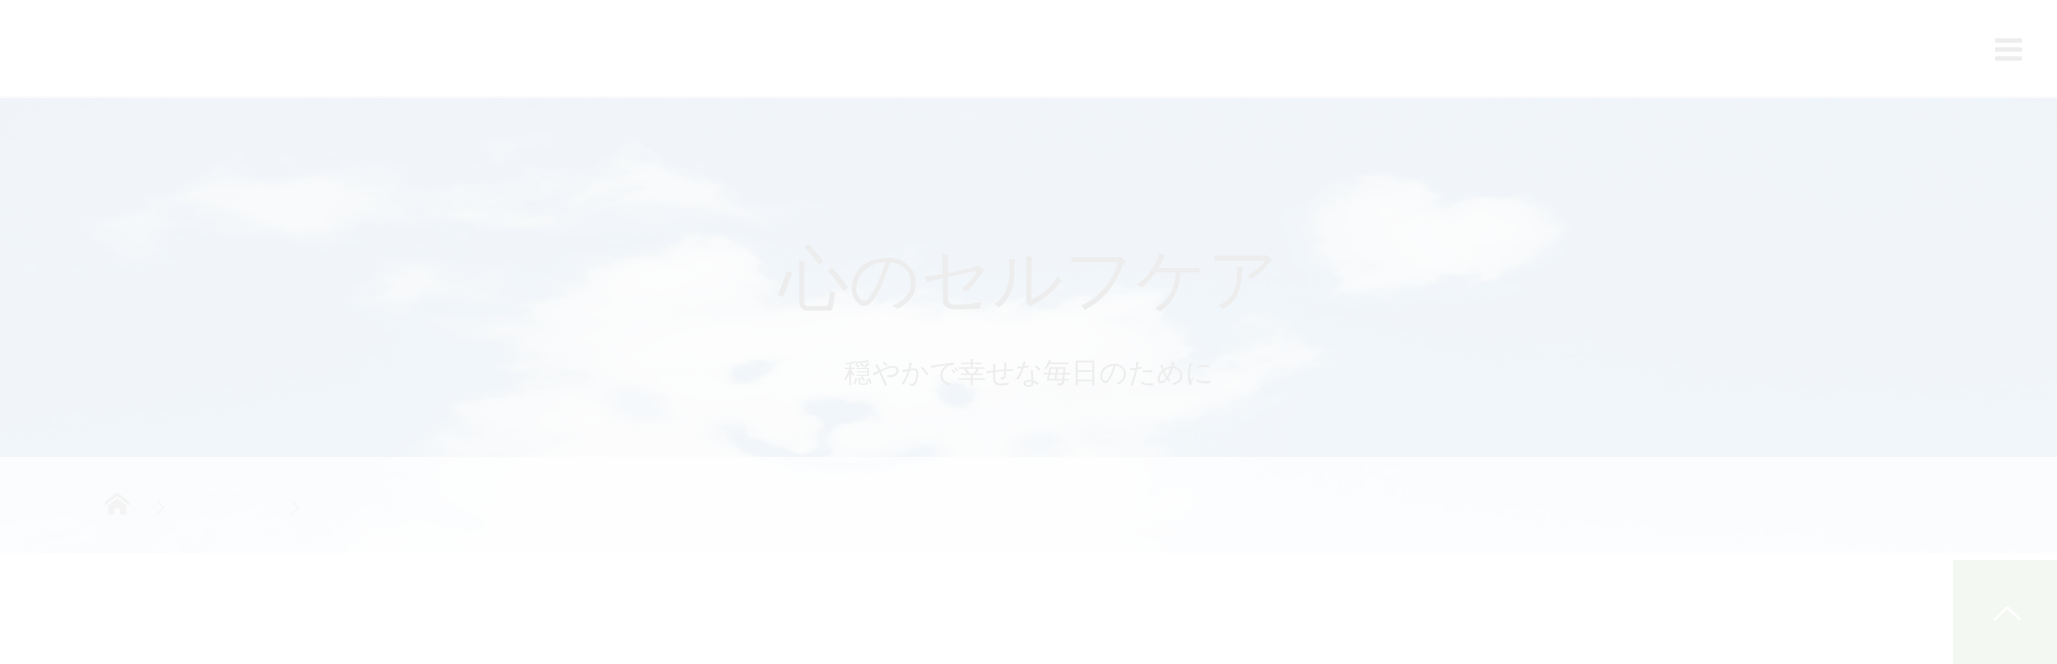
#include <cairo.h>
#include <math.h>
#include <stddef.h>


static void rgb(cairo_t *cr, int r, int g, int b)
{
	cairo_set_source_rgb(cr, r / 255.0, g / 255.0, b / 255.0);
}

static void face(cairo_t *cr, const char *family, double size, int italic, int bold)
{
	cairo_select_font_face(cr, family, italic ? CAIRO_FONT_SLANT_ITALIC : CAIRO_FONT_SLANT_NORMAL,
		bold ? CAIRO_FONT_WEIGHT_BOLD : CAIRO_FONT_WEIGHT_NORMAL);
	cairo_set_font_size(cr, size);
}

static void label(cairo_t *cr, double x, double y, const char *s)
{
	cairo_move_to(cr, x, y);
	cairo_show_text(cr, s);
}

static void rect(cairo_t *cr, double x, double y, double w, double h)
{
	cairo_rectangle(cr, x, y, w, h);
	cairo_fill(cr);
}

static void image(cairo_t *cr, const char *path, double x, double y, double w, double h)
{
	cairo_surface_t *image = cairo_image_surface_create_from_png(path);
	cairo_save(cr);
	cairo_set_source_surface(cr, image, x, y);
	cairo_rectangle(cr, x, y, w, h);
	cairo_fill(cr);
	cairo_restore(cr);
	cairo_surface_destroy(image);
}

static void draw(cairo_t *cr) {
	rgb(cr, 255, 255, 255);
	cairo_paint(cr);
	rgb(cr, 251, 251, 251);
	rect(cr, 0, 96, 2057, 2);
	image(cr, "image0.png", 1995, 38, 27, 23);
	image(cr, "image1.png", 0, 98, 2057, 455);
	face(cr, "WenQuanYi Zen Hei Medium", 70, 0, 0);
	rgb(cr, 237, 237, 237);
	label(cr, 779, 303, "心のセルフケア");
	face(cr, "WenQuanYi Zen Hei Medium", 28, 0, 0);
	label(cr, 844, 382, "穏やかで幸せな毎日のために");
	cairo_set_source_rgba(cr, 1, 1, 1, 0.7);
	rect(cr, 0, 457, 2057, 96);
	image(cr, "image2.png", 105, 492, 25, 23);
	image(cr, "image3.png", 157, 500, 8, 15);
	image(cr, "image4.png", 291, 500, 8, 15);
	rgb(cr, 244, 248, 243);
	rect(cr, 1953, 560, 104, 104);
	image(cr, "image5.png", 1993, 606, 28, 15);
}

int main(void) {
	cairo_surface_t *surface = cairo_image_surface_create(CAIRO_FORMAT_RGB24, 2057, 664);
	cairo_t *cr = cairo_create(surface);
	cairo_font_options_t *options = cairo_font_options_create();
	cairo_font_options_set_hint_metrics(options, CAIRO_HINT_METRICS_OFF);
	cairo_font_options_set_hint_style(options, CAIRO_HINT_STYLE_NONE);
	cairo_set_font_options(cr, options);
	cairo_set_miter_limit(cr, 4);
	draw(cr);
	cairo_surface_write_to_png(surface, "render.png");
	cairo_font_options_destroy(options);
	cairo_destroy(cr);
	cairo_surface_destroy(surface);
	return 0;
}
